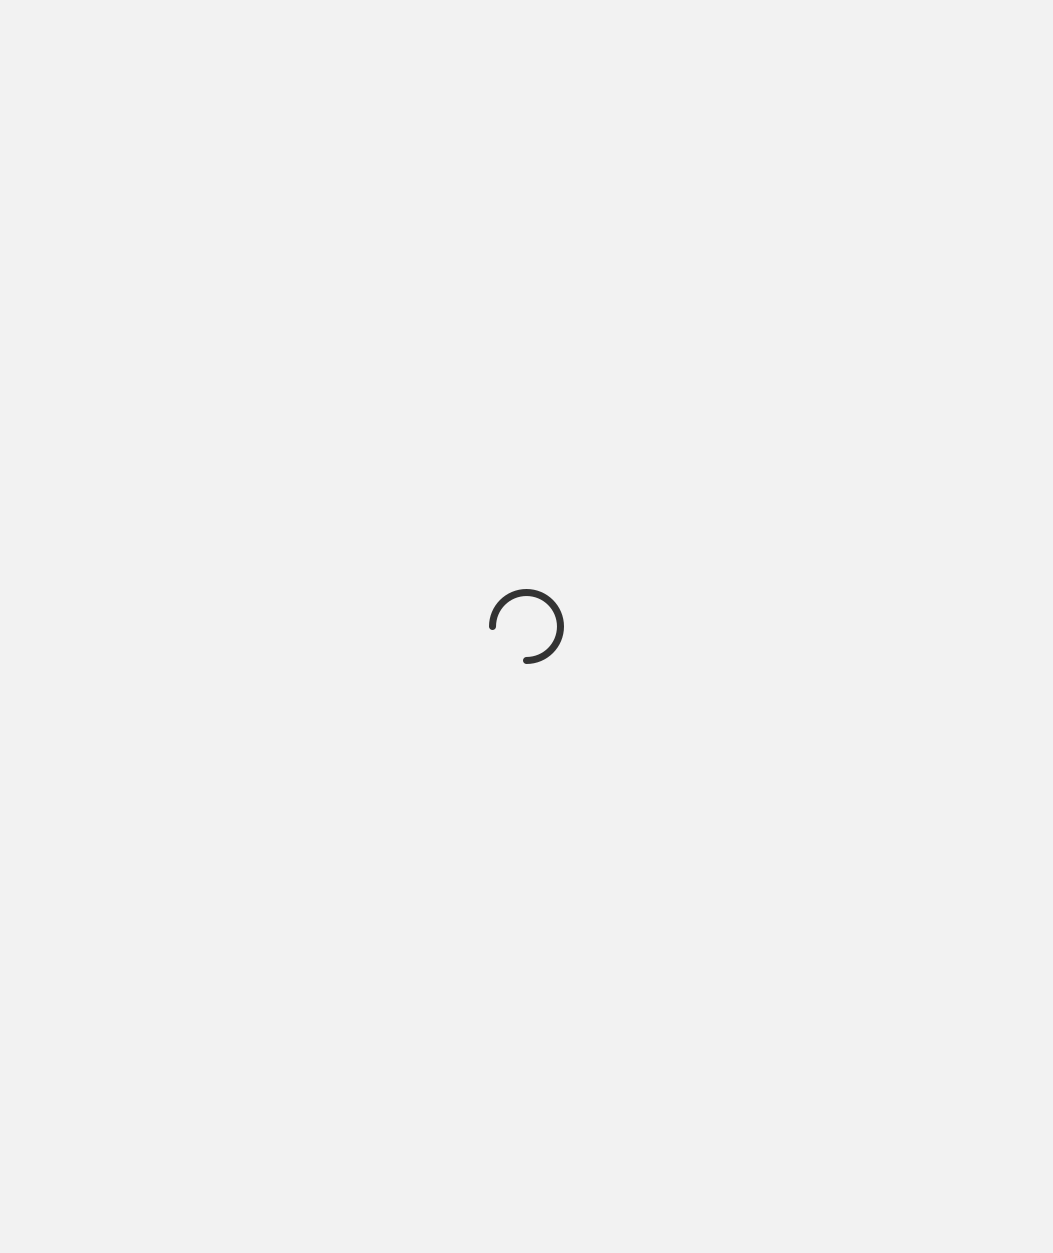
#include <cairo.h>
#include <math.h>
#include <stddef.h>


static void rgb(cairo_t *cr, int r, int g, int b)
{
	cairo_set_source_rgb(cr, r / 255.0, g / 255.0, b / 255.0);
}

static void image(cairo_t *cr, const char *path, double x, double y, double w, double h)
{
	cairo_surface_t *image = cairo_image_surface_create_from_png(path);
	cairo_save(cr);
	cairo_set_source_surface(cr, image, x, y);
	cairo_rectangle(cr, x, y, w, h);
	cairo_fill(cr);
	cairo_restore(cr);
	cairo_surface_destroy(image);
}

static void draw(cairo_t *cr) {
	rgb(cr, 242, 242, 242);
	cairo_paint(cr);
	image(cr, "image0.png", 489, 589, 75, 75);
}

int main(void) {
	cairo_surface_t *surface = cairo_image_surface_create(CAIRO_FORMAT_RGB24, 1053, 1253);
	cairo_t *cr = cairo_create(surface);
	cairo_font_options_t *options = cairo_font_options_create();
	cairo_font_options_set_hint_metrics(options, CAIRO_HINT_METRICS_OFF);
	cairo_font_options_set_hint_style(options, CAIRO_HINT_STYLE_NONE);
	cairo_set_font_options(cr, options);
	cairo_set_miter_limit(cr, 4);
	draw(cr);
	cairo_surface_write_to_png(surface, "render.png");
	cairo_font_options_destroy(options);
	cairo_destroy(cr);
	cairo_surface_destroy(surface);
	return 0;
}
